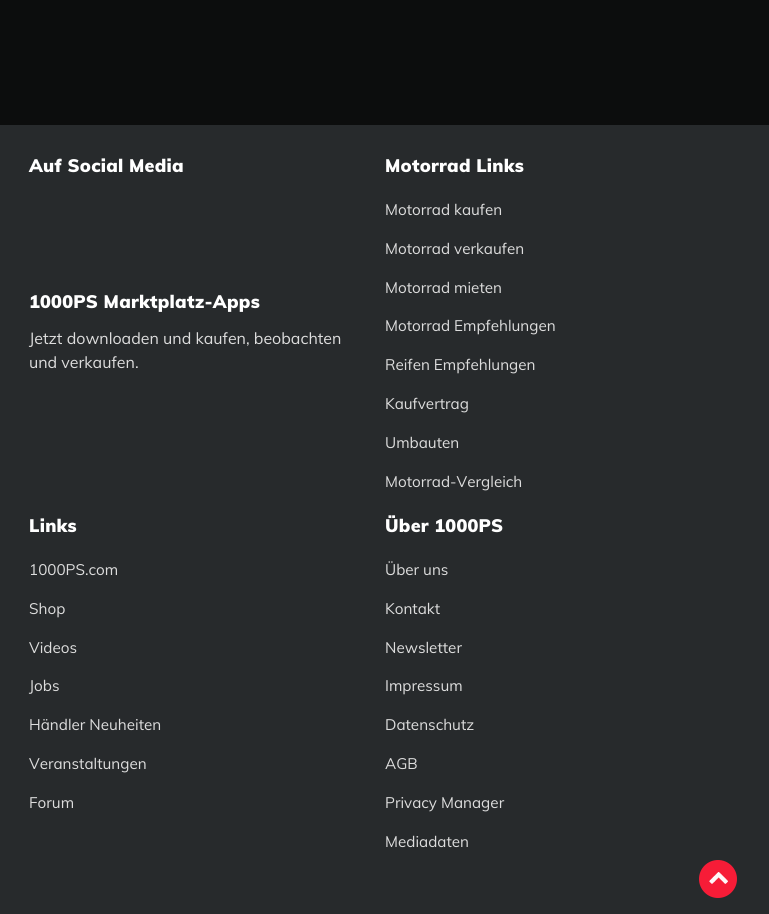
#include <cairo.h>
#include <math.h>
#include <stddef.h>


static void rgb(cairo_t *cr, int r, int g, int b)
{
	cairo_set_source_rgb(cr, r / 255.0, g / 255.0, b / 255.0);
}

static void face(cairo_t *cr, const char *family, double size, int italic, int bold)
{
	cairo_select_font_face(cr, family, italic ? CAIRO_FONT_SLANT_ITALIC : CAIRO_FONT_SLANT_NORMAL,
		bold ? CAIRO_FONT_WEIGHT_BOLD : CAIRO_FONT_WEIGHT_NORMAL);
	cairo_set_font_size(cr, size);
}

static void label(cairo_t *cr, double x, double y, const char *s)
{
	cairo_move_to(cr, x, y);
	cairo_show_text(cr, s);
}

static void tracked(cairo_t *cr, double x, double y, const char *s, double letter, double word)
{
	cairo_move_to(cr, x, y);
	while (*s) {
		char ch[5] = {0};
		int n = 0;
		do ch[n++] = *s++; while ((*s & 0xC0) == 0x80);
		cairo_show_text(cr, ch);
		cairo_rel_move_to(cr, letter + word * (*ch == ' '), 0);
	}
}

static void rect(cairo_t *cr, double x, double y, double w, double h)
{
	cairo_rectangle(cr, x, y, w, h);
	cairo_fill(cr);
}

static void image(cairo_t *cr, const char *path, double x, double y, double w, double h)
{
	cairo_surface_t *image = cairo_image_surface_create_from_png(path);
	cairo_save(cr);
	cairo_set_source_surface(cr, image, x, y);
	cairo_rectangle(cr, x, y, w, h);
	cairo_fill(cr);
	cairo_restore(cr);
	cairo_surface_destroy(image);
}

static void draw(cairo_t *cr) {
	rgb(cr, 39, 42, 44);
	cairo_paint(cr);
	rgb(cr, 12, 13, 13);
	rect(cr, 0, 0, 769, 125);
	face(cr, "Muli Black", 18, 0, 0);
	rgb(cr, 255, 255, 255);
	tracked(cr, 29, 172, "Auf Social Media", 0.25, 0);
	tracked(cr, 29, 308, "1000PS Marktplatz-Apps", 0.25, 0);
	face(cr, "Muli", 16, 0, 0);
	rgb(cr, 221, 221, 221);
	label(cr, 29, 344, "Jetzt downloaden und kaufen, beobachten");
	label(cr, 29, 368, "und verkaufen.");
	face(cr, "Muli Black", 18, 0, 0);
	rgb(cr, 255, 255, 255);
	tracked(cr, 385, 172, "Motorrad Links", 0.25, 0);
	face(cr, "Muli", 15.25, 0, 0);
	rgb(cr, 221, 221, 221);
	label(cr, 385, 215, "Motorrad kaufen");
	label(cr, 385, 254, "Motorrad verkaufen");
	label(cr, 385, 293, "Motorrad mieten");
	label(cr, 385, 331, "Motorrad Empfehlungen");
	label(cr, 385, 370, "Reifen Empfehlungen");
	label(cr, 385, 409, "Kaufvertrag");
	label(cr, 385, 448, "Umbauten");
	label(cr, 385, 487, "Motorrad-Vergleich");
	face(cr, "Muli Black", 18, 0, 0);
	rgb(cr, 255, 255, 255);
	tracked(cr, 29, 532, "Links", 0.25, 0);
	face(cr, "Muli", 15.25, 0, 0);
	rgb(cr, 221, 221, 221);
	label(cr, 29, 575, "1000PS.com");
	label(cr, 29, 614, "Shop");
	label(cr, 29, 653, "Videos");
	label(cr, 29, 691, "Jobs");
	label(cr, 29, 730, "Händler Neuheiten");
	label(cr, 29, 769, "Veranstaltungen");
	label(cr, 29, 808, "Forum");
	face(cr, "Muli Black", 18, 0, 0);
	rgb(cr, 255, 255, 255);
	tracked(cr, 385, 532, "Über 1000PS", 0.25, 0);
	face(cr, "Muli", 15.25, 0, 0);
	rgb(cr, 221, 221, 221);
	label(cr, 385, 575, "Über uns");
	label(cr, 385, 614, "Kontakt");
	label(cr, 385, 653, "Newsletter");
	label(cr, 385, 691, "Impressum");
	label(cr, 385, 730, "Datenschutz");
	label(cr, 385, 769, "AGB");
	label(cr, 385, 808, "Privacy Manager");
	label(cr, 385, 847, "Mediadaten");
	rgb(cr, 247, 28, 55);
	cairo_new_path(cr);
	cairo_arc(cr, 718, 879, 19, 0, 2 * M_PI);
	cairo_fill(cr);
	image(cr, "image0.png", 709, 872, 19, 12);
}

int main(void) {
	cairo_surface_t *surface = cairo_image_surface_create(CAIRO_FORMAT_RGB24, 769, 914);
	cairo_t *cr = cairo_create(surface);
	cairo_font_options_t *options = cairo_font_options_create();
	cairo_font_options_set_hint_metrics(options, CAIRO_HINT_METRICS_OFF);
	cairo_font_options_set_hint_style(options, CAIRO_HINT_STYLE_NONE);
	cairo_set_font_options(cr, options);
	cairo_set_miter_limit(cr, 4);
	draw(cr);
	cairo_surface_write_to_png(surface, "render.png");
	cairo_font_options_destroy(options);
	cairo_destroy(cr);
	cairo_surface_destroy(surface);
	return 0;
}
